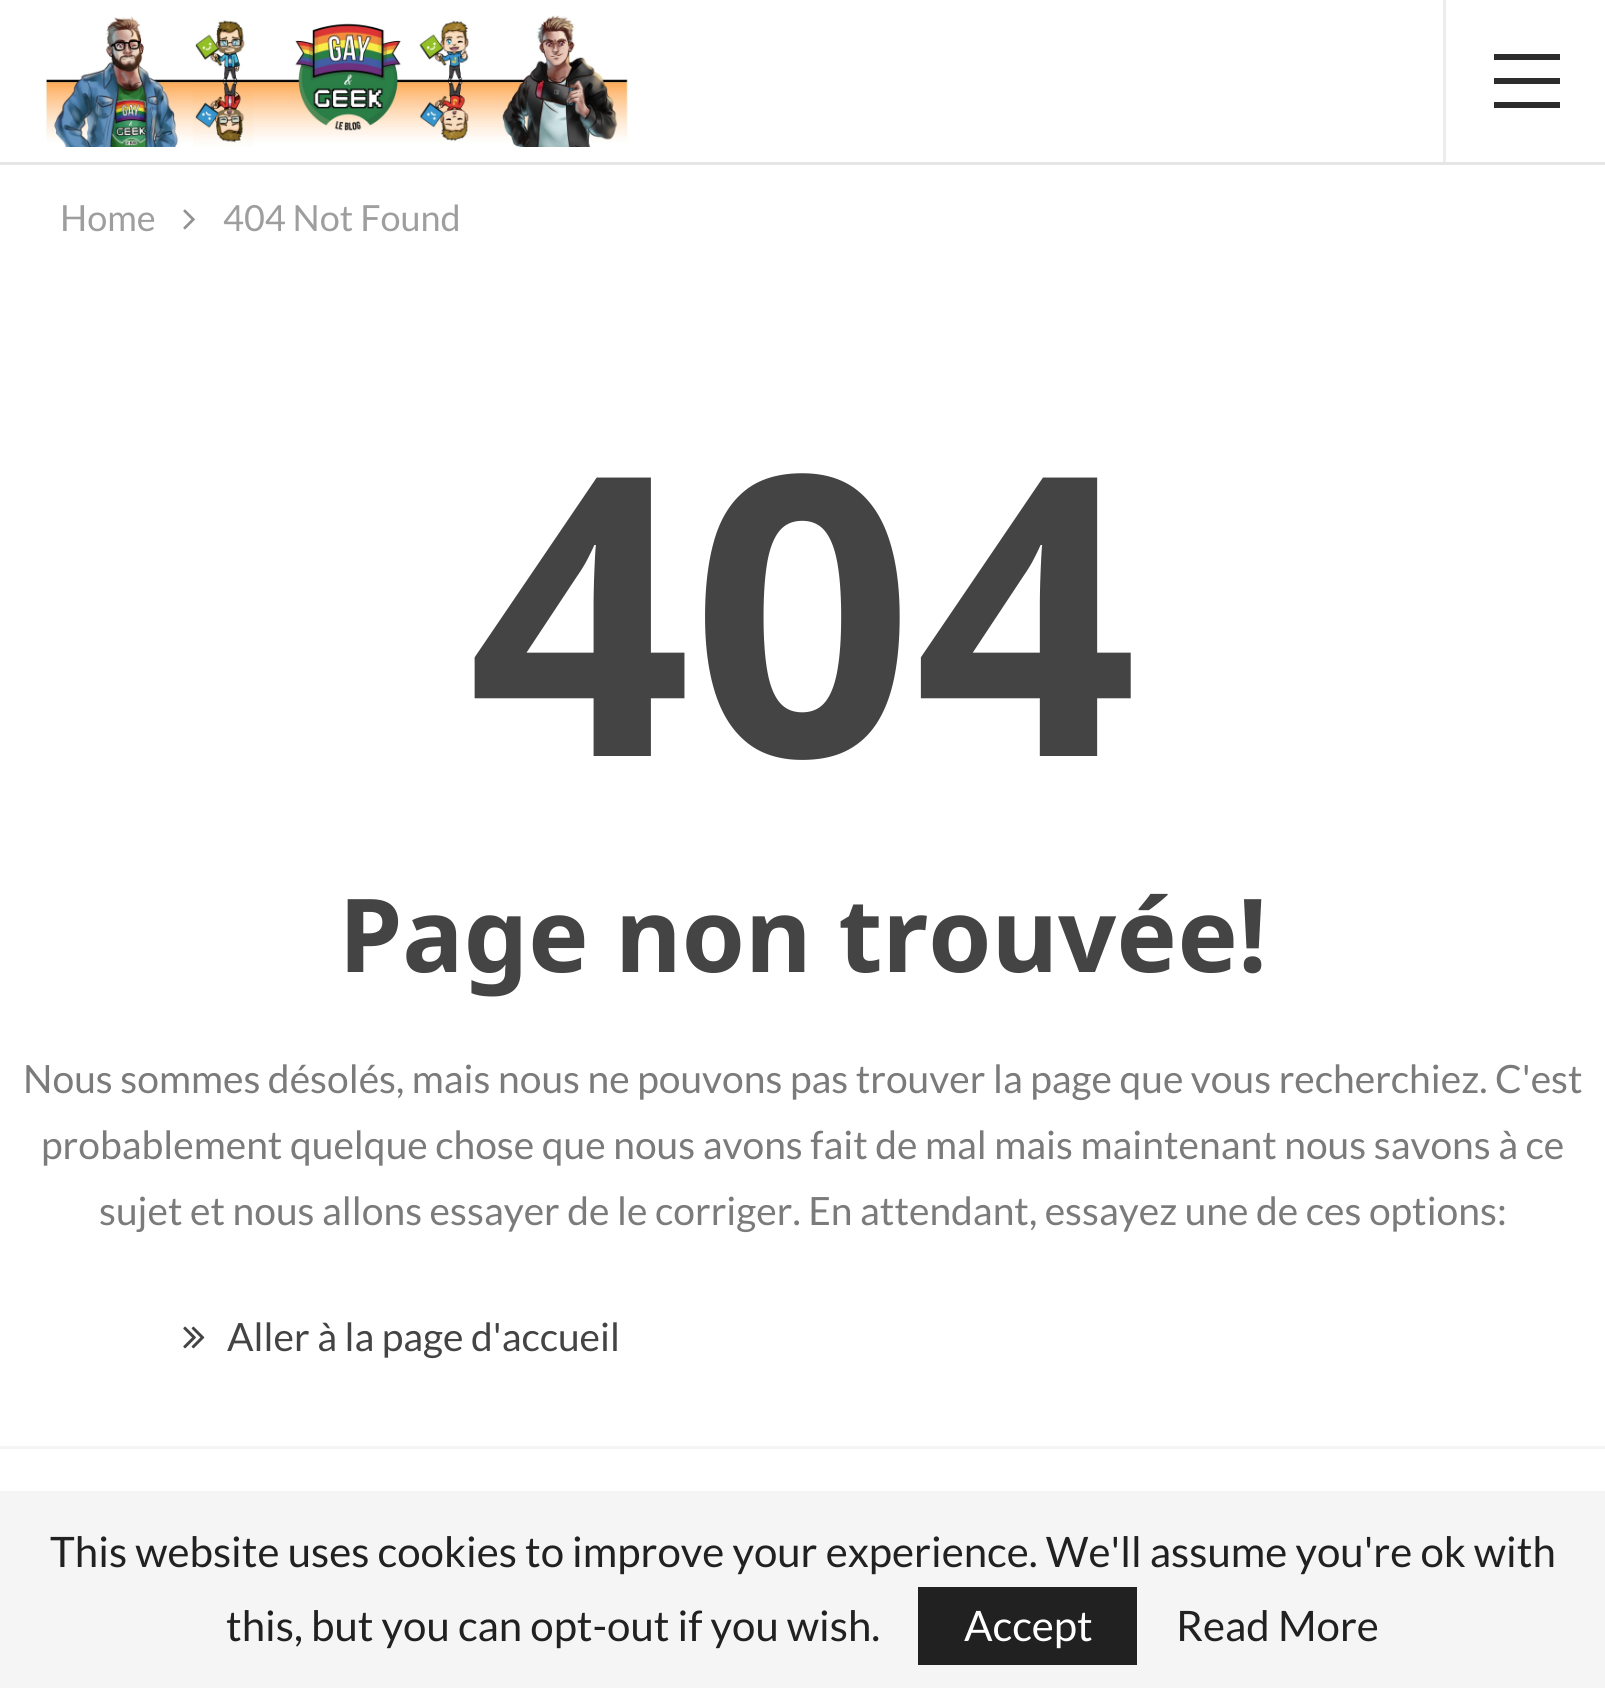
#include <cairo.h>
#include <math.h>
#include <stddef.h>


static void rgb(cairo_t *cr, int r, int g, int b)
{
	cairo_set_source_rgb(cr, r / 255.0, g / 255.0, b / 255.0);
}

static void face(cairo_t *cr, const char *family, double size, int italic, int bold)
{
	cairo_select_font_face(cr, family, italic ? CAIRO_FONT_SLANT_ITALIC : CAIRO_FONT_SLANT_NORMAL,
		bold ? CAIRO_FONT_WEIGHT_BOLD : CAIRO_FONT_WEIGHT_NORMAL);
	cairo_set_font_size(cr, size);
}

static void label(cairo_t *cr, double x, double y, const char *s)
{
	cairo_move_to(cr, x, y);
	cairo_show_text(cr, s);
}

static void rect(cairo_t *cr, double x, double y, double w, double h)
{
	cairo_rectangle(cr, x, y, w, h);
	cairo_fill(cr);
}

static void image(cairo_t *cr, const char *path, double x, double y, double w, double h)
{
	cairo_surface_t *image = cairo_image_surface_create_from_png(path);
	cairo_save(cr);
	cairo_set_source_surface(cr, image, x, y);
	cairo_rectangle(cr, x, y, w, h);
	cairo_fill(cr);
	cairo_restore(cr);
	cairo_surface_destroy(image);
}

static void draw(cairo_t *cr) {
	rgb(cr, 255, 255, 255);
	cairo_paint(cr);
	rgb(cr, 229, 229, 229);
	rect(cr, 0, 162, 1605, 3);
	image(cr, "image0.png", 46, 15, 583, 132);
	rgb(cr, 237, 237, 237);
	rect(cr, 1443, 0, 3, 162);
	rgb(cr, 44, 44, 44);
	rect(cr, 1494, 78, 66, 6);
	rect(cr, 1494, 54, 66, 6);
	rect(cr, 1494, 102, 66, 6);
	face(cr, "Lato", 36, 0, 0);
	rgb(cr, 158, 158, 158);
	label(cr, 60, 231, "Home");
	image(cr, "image1.png", 183, 209, 12, 21);
	label(cr, 223, 231, "404 Not Found");
	face(cr, "Noto Sans", 390, 0, 1);
	rgb(cr, 68, 68, 68);
	label(cr, 468, 756, "404");
	face(cr, "Noto Sans", 102, 0, 1);
	label(cr, 339, 972, "Page non trouvée!");
	face(cr, "Lato", 39, 0, 0);
	rgb(cr, 123, 123, 123);
	label(cr, 23, 1093, "Nous sommes désolés, mais nous ne pouvons pas trouver la page que vous recherchiez. C'est");
	label(cr, 41, 1159, "probablement quelque chose que nous avons fait de mal mais maintenant nous savons à ce");
	label(cr, 99, 1225, "sujet et nous allons essayer de le corriger. En attendant, essayez une de ces options:");
	image(cr, "image2.png", 183, 1326, 22, 23);
	rgb(cr, 68, 68, 68);
	label(cr, 227, 1351, "Aller à la page d'accueil");
	rgb(cr, 244, 244, 244);
	rect(cr, 0, 1446, 1605, 3);
	rgb(cr, 245, 245, 245);
	rect(cr, 0, 1491, 1605, 197);
	face(cr, "Lato", 42, 0, 0);
	rgb(cr, 33, 33, 33);
	label(cr, 50, 1567, "This website uses cookies to improve your experience. We'll assume you're ok with");
	label(cr, 226, 1641, "this, but you can opt-out if you wish.");
	rect(cr, 918, 1587, 219, 78);
	rgb(cr, 255, 255, 255);
	label(cr, 964, 1641, "Accept");
	rgb(cr, 33, 33, 33);
	label(cr, 1176, 1641, "Read More");
}

int main(void) {
	cairo_surface_t *surface = cairo_image_surface_create(CAIRO_FORMAT_RGB24, 1605, 1688);
	cairo_t *cr = cairo_create(surface);
	cairo_font_options_t *options = cairo_font_options_create();
	cairo_font_options_set_hint_metrics(options, CAIRO_HINT_METRICS_OFF);
	cairo_font_options_set_hint_style(options, CAIRO_HINT_STYLE_NONE);
	cairo_set_font_options(cr, options);
	cairo_set_miter_limit(cr, 4);
	draw(cr);
	cairo_surface_write_to_png(surface, "render.png");
	cairo_font_options_destroy(options);
	cairo_destroy(cr);
	cairo_surface_destroy(surface);
	return 0;
}
